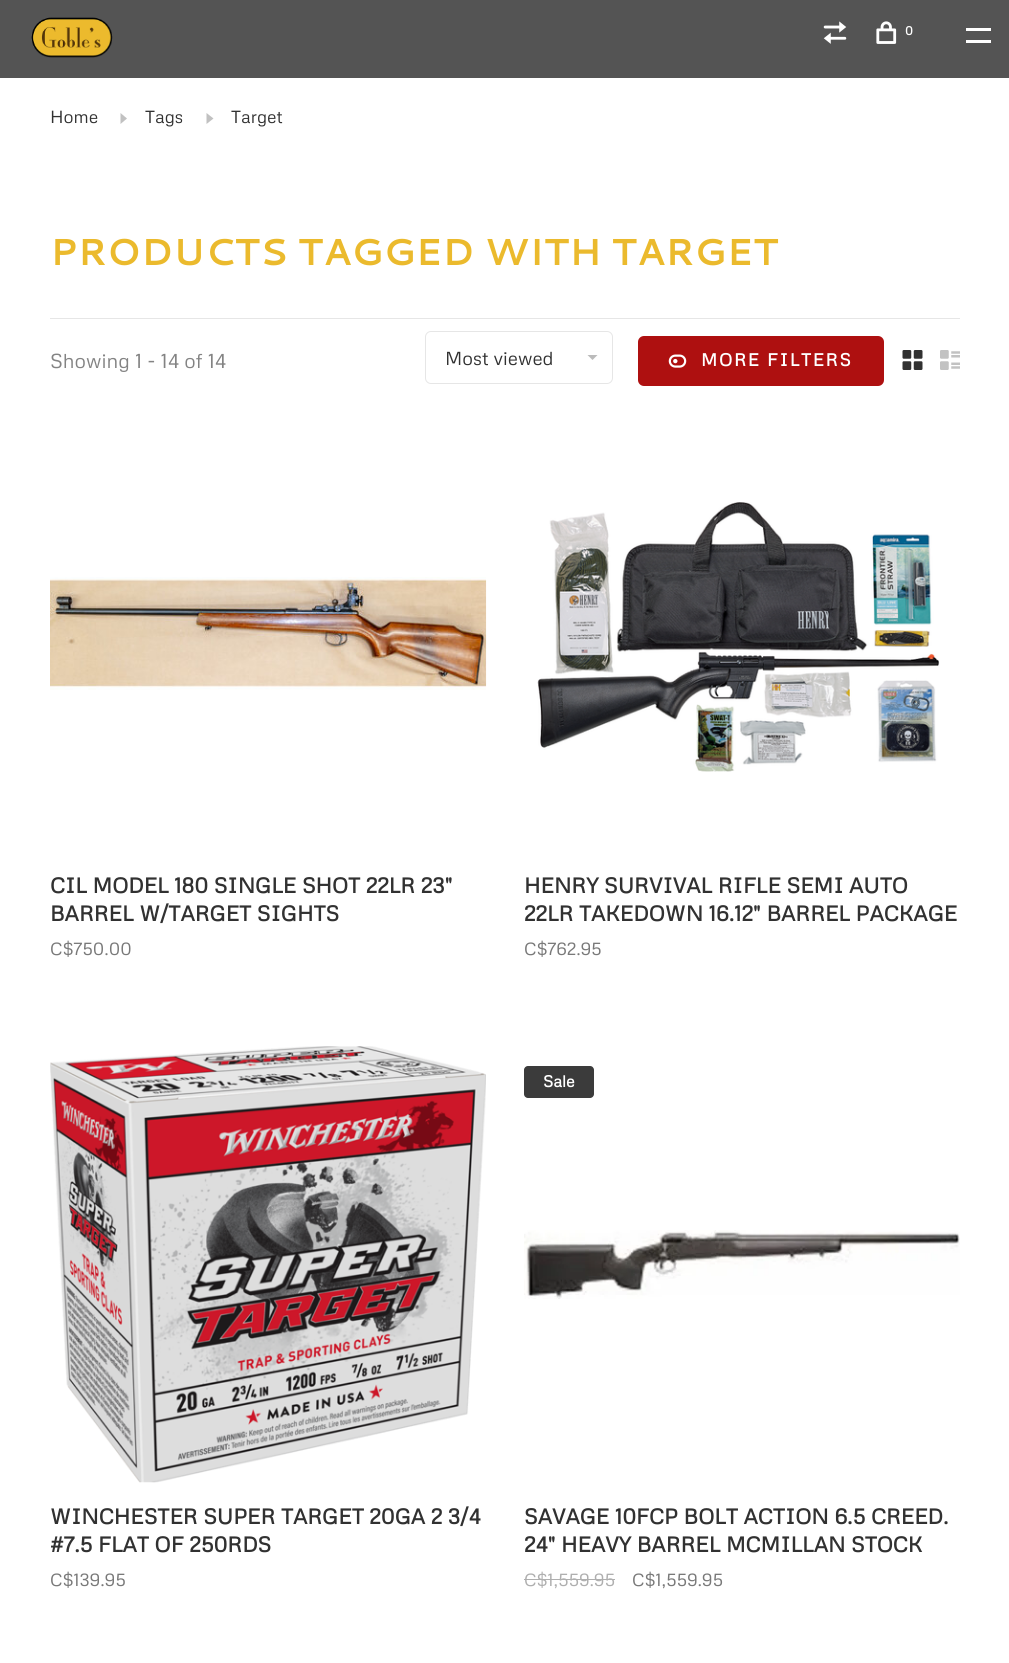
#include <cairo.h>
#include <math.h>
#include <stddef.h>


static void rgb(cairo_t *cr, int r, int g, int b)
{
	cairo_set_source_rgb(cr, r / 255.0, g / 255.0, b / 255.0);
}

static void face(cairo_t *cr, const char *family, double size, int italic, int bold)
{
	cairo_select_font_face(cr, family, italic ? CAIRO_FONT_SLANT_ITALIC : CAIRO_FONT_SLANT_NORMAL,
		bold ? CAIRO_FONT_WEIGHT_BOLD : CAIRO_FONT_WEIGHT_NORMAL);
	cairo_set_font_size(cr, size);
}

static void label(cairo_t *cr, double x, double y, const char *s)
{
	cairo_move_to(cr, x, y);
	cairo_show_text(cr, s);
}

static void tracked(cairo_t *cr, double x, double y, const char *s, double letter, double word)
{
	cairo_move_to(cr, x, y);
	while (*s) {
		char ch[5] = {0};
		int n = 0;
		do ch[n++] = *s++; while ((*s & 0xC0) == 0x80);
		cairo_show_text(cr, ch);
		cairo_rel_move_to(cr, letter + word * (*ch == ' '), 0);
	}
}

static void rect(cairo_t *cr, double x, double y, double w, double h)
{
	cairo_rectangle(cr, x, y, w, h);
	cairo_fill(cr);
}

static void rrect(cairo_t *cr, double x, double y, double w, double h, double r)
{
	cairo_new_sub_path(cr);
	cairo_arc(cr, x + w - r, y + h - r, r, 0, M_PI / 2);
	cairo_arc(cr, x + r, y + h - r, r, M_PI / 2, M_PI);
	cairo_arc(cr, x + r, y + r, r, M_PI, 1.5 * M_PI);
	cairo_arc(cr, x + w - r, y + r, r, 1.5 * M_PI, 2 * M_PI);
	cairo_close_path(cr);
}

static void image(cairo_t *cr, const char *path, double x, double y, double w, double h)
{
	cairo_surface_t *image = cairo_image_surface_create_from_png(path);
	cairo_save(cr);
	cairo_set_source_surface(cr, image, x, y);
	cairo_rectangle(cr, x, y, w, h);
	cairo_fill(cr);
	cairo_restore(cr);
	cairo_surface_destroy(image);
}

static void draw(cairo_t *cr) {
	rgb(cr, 255, 255, 255);
	cairo_paint(cr);
	rgb(cr, 84, 84, 84);
	rect(cr, 0, 0, 1009, 78);
	image(cr, "image0.png", 31, 17, 82, 41);
	image(cr, "image1.png", 823, 21, 24, 23);
	image(cr, "image2.png", 876, 21, 21, 23);
	face(cr, "Metrophobic", 12, 0, 1);
	rgb(cr, 255, 255, 255);
	tracked(cr, 905, 35, "0", 1.75, 0);
	rect(cr, 966, 28, 25, 3);
	rect(cr, 966, 40, 25, 3);
	face(cr, "Metrophobic", 17.5, 0, 0);
	rgb(cr, 49, 49, 49);
	label(cr, 50, 123, "Home");
	rgb(cr, 193, 193, 193);
	cairo_new_path(cr);
	cairo_move_to(cr, 120.5, 124);
	cairo_line_to(cr, 127, 118.5);
	cairo_line_to(cr, 120.5, 113);
	cairo_close_path(cr);
	cairo_fill(cr);
	rgb(cr, 49, 49, 49);
	label(cr, 145, 123, "Tags");
	rgb(cr, 193, 193, 193);
	cairo_new_path(cr);
	cairo_move_to(cr, 206.5, 124);
	cairo_line_to(cr, 213.5, 118.5);
	cairo_line_to(cr, 206.5, 113);
	cairo_close_path(cr);
	cairo_fill(cr);
	rgb(cr, 49, 49, 49);
	label(cr, 231, 123, "Target");
	face(cr, "Cantarell", 37.5, 0, 1);
	rgb(cr, 235, 186, 45);
	label(cr, 50, 265, "PRODUCTS TAGGED WITH TARGET");
	rgb(cr, 230, 230, 230);
	rect(cr, 50, 318, 910, 1);
	face(cr, "Metrophobic", 20, 0, 0);
	rgb(cr, 131, 131, 131);
	label(cr, 50, 368, "Showing 1 - 14 of 14");
	rrect(cr, 425.5, 331.5, 187, 52, 5.5);
	rgb(cr, 230, 230, 230);
	cairo_set_line_width(cr, 1);
	cairo_stroke(cr);
	face(cr, "Metrophobic", 18.75, 0, 0);
	rgb(cr, 49, 49, 49);
	label(cr, 445, 365, "Most viewed");
	rgb(cr, 187, 187, 187);
	cairo_new_path(cr);
	cairo_move_to(cr, 587.5, 355);
	cairo_line_to(cr, 597.5, 355);
	cairo_line_to(cr, 592.5, 360);
	cairo_close_path(cr);
	cairo_fill(cr);
	rgb(cr, 174, 16, 16);
	rrect(cr, 638, 336, 246, 50, 6);
	cairo_fill(cr);
	image(cr, "image3.png", 668, 354, 19, 14);
	face(cr, "Metrophobic", 17.5, 0, 1);
	rgb(cr, 255, 255, 255);
	tracked(cr, 701, 366, "MORE FILTERS", 1.75, 0);
	image(cr, "image4.png", 902, 350, 21, 20);
	image(cr, "image5.png", 940, 350, 20, 20);
	image(cr, "image6.png", 50, 577, 437, 113);
	face(cr, "Metrophobic", 21.25, 0, 1);
	rgb(cr, 49, 49, 49);
	label(cr, 50, 893, "CIL MODEL 180 SINGLE SHOT 22LR 23\"");
	label(cr, 50, 921, "BARREL W/TARGET SIGHTS");
	face(cr, "Metrophobic", 17.5, 0, 0);
	rgb(cr, 121, 121, 121);
	label(cr, 50, 955, "C$750.00");
	image(cr, "image7.png", 537, 502, 403, 270);
	face(cr, "Metrophobic", 21.25, 0, 1);
	rgb(cr, 49, 49, 49);
	label(cr, 524, 893, "HENRY SURVIVAL RIFLE SEMI AUTO");
	label(cr, 524, 921, "22LR TAKEDOWN 16.12\" BARREL PACKAGE");
	face(cr, "Metrophobic", 17.5, 0, 0);
	rgb(cr, 121, 121, 121);
	label(cr, 524, 955, "C$762.95");
	image(cr, "image8.png", 50, 1046, 436, 437);
	face(cr, "Metrophobic", 21.25, 0, 1);
	rgb(cr, 49, 49, 49);
	label(cr, 50, 1524, "WINCHESTER SUPER TARGET 20GA 2 3/4");
	label(cr, 50, 1552, "#7.5 FLAT OF 250RDS");
	face(cr, "Metrophobic", 17.5, 0, 0);
	rgb(cr, 121, 121, 121);
	label(cr, 50, 1586, "C$139.95");
	rgb(cr, 59, 59, 59);
	rrect(cr, 524, 1066, 70, 32, 4);
	cairo_fill(cr);
	face(cr, "Metrophobic", 16, 0, 1);
	rgb(cr, 255, 255, 255);
	label(cr, 543, 1087, "Sale");
	image(cr, "image9.png", 524, 1230, 436, 69);
	face(cr, "Metrophobic", 21.25, 0, 1);
	rgb(cr, 49, 49, 49);
	label(cr, 524, 1524, "SAVAGE 10FCP BOLT ACTION 6.5 CREED.");
	label(cr, 524, 1552, "24\" HEAVY BARREL MCMILLAN STOCK");
	face(cr, "Metrophobic", 17.5, 0, 0);
	rgb(cr, 175, 175, 175);
	label(cr, 524, 1586, "C$1,559.95");
	rect(cr, 524, 1579, 91, 1);
	rgb(cr, 121, 121, 121);
	label(cr, 632, 1586, "C$1,559.95");
}

int main(void) {
	cairo_surface_t *surface = cairo_image_surface_create(CAIRO_FORMAT_RGB24, 1009, 1663);
	cairo_t *cr = cairo_create(surface);
	cairo_font_options_t *options = cairo_font_options_create();
	cairo_font_options_set_hint_metrics(options, CAIRO_HINT_METRICS_OFF);
	cairo_font_options_set_hint_style(options, CAIRO_HINT_STYLE_NONE);
	cairo_set_font_options(cr, options);
	cairo_set_miter_limit(cr, 4);
	draw(cr);
	cairo_surface_write_to_png(surface, "render.png");
	cairo_font_options_destroy(options);
	cairo_destroy(cr);
	cairo_surface_destroy(surface);
	return 0;
}
